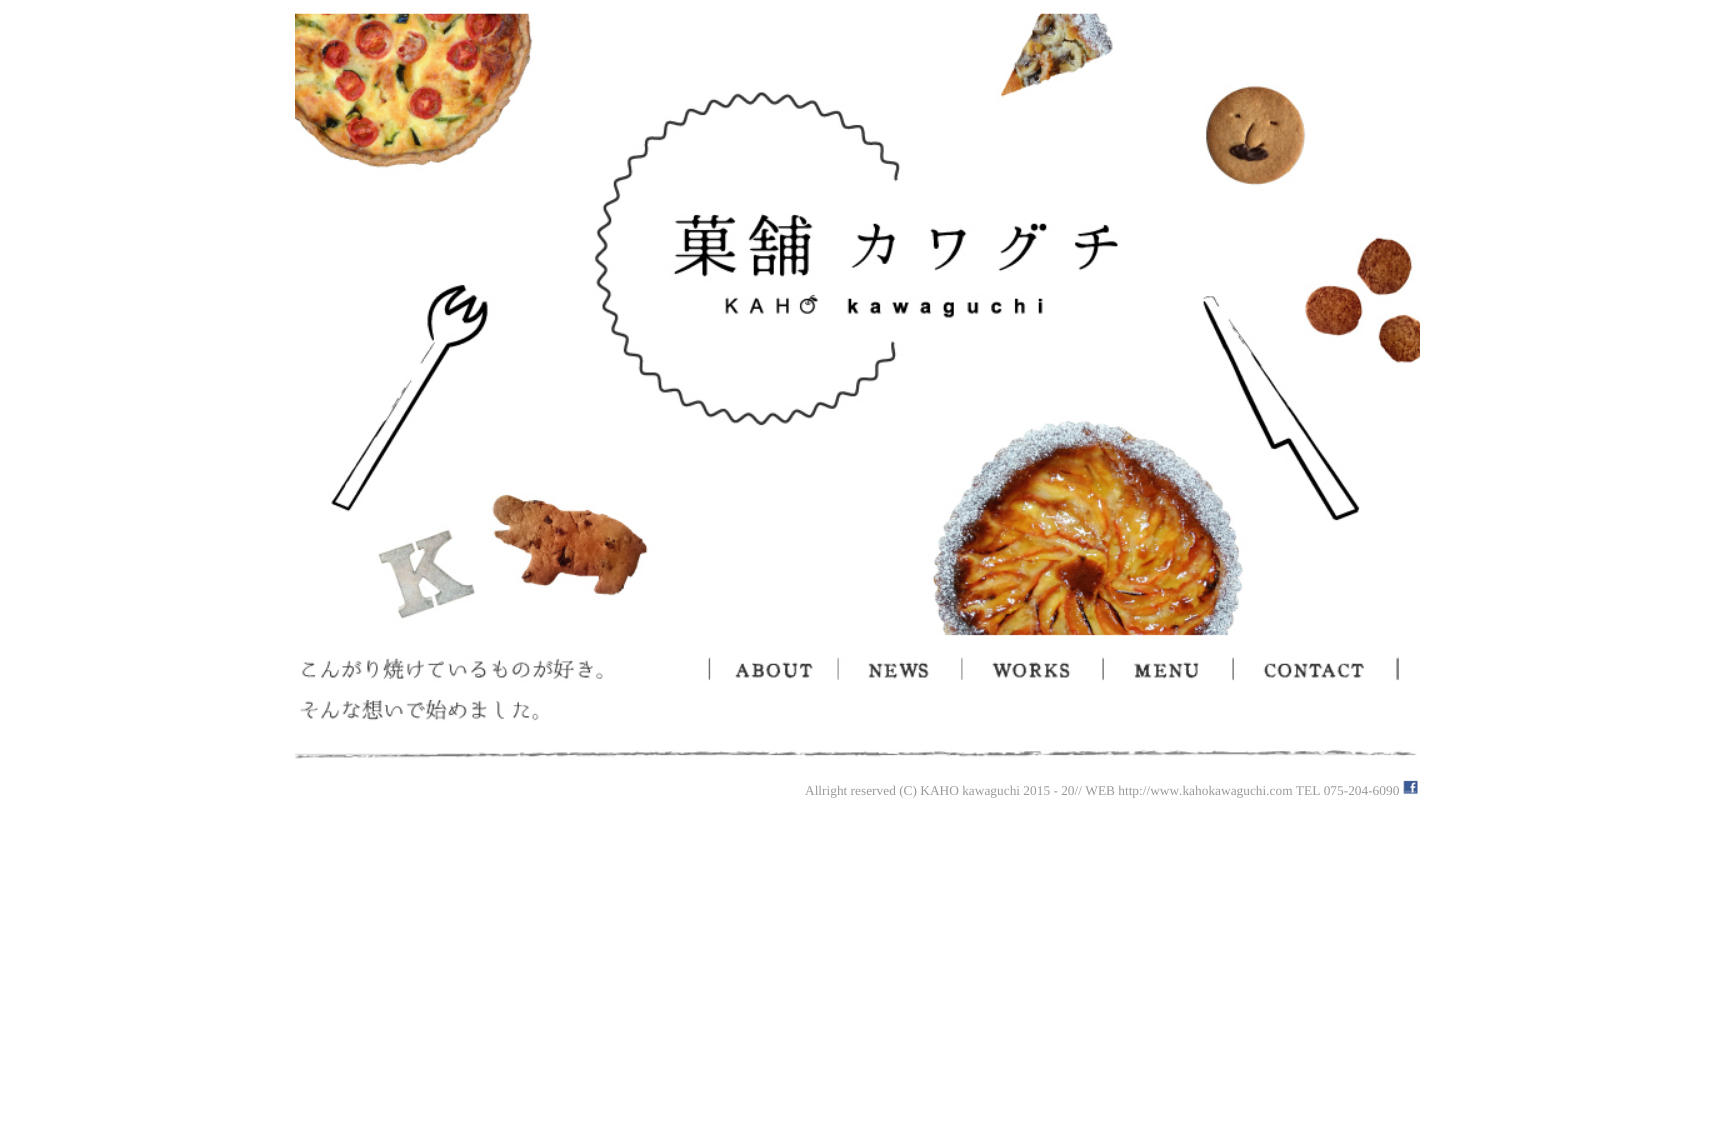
#include <cairo.h>
#include <math.h>
#include <stddef.h>


static void rgb(cairo_t *cr, int r, int g, int b)
{
	cairo_set_source_rgb(cr, r / 255.0, g / 255.0, b / 255.0);
}

static void face(cairo_t *cr, const char *family, double size, int italic, int bold)
{
	cairo_select_font_face(cr, family, italic ? CAIRO_FONT_SLANT_ITALIC : CAIRO_FONT_SLANT_NORMAL,
		bold ? CAIRO_FONT_WEIGHT_BOLD : CAIRO_FONT_WEIGHT_NORMAL);
	cairo_set_font_size(cr, size);
}

static void label(cairo_t *cr, double x, double y, const char *s)
{
	cairo_move_to(cr, x, y);
	cairo_show_text(cr, s);
}

static void image(cairo_t *cr, const char *path, double x, double y, double w, double h)
{
	cairo_surface_t *image = cairo_image_surface_create_from_png(path);
	cairo_save(cr);
	cairo_set_source_surface(cr, image, x, y);
	cairo_rectangle(cr, x, y, w, h);
	cairo_fill(cr);
	cairo_restore(cr);
	cairo_surface_destroy(image);
}

static void draw(cairo_t *cr) {
	rgb(cr, 255, 255, 255);
	cairo_paint(cr);
	image(cr, "image0.png", 295, 13, 1125, 623);
	image(cr, "image1.png", 300, 658, 303, 63);
	image(cr, "image2.png", 708, 657, 105, 24);
	image(cr, "image3.png", 837, 657, 92, 24);
	image(cr, "image4.png", 961, 657, 110, 24);
	image(cr, "image5.png", 1102, 657, 97, 24);
	image(cr, "image6.png", 1232, 657, 167, 24);
	image(cr, "image7.png", 295, 749, 1122, 10);
	face(cr, "Liberation Serif", 13.35, 0, 0);
	rgb(cr, 153, 153, 153);
	label(cr, 805, 795, "Allright reserved (C) KAHO kawaguchi 2015 - 20// WEB http://www.kahokawaguchi.com TEL 075-204-6090");
	image(cr, "image8.png", 1403, 780, 15, 15);
}

int main(void) {
	cairo_surface_t *surface = cairo_image_surface_create(CAIRO_FORMAT_RGB24, 1714, 1136);
	cairo_t *cr = cairo_create(surface);
	cairo_font_options_t *options = cairo_font_options_create();
	cairo_font_options_set_hint_metrics(options, CAIRO_HINT_METRICS_OFF);
	cairo_font_options_set_hint_style(options, CAIRO_HINT_STYLE_NONE);
	cairo_set_font_options(cr, options);
	cairo_set_miter_limit(cr, 4);
	draw(cr);
	cairo_surface_write_to_png(surface, "render.png");
	cairo_font_options_destroy(options);
	cairo_destroy(cr);
	cairo_surface_destroy(surface);
	return 0;
}
